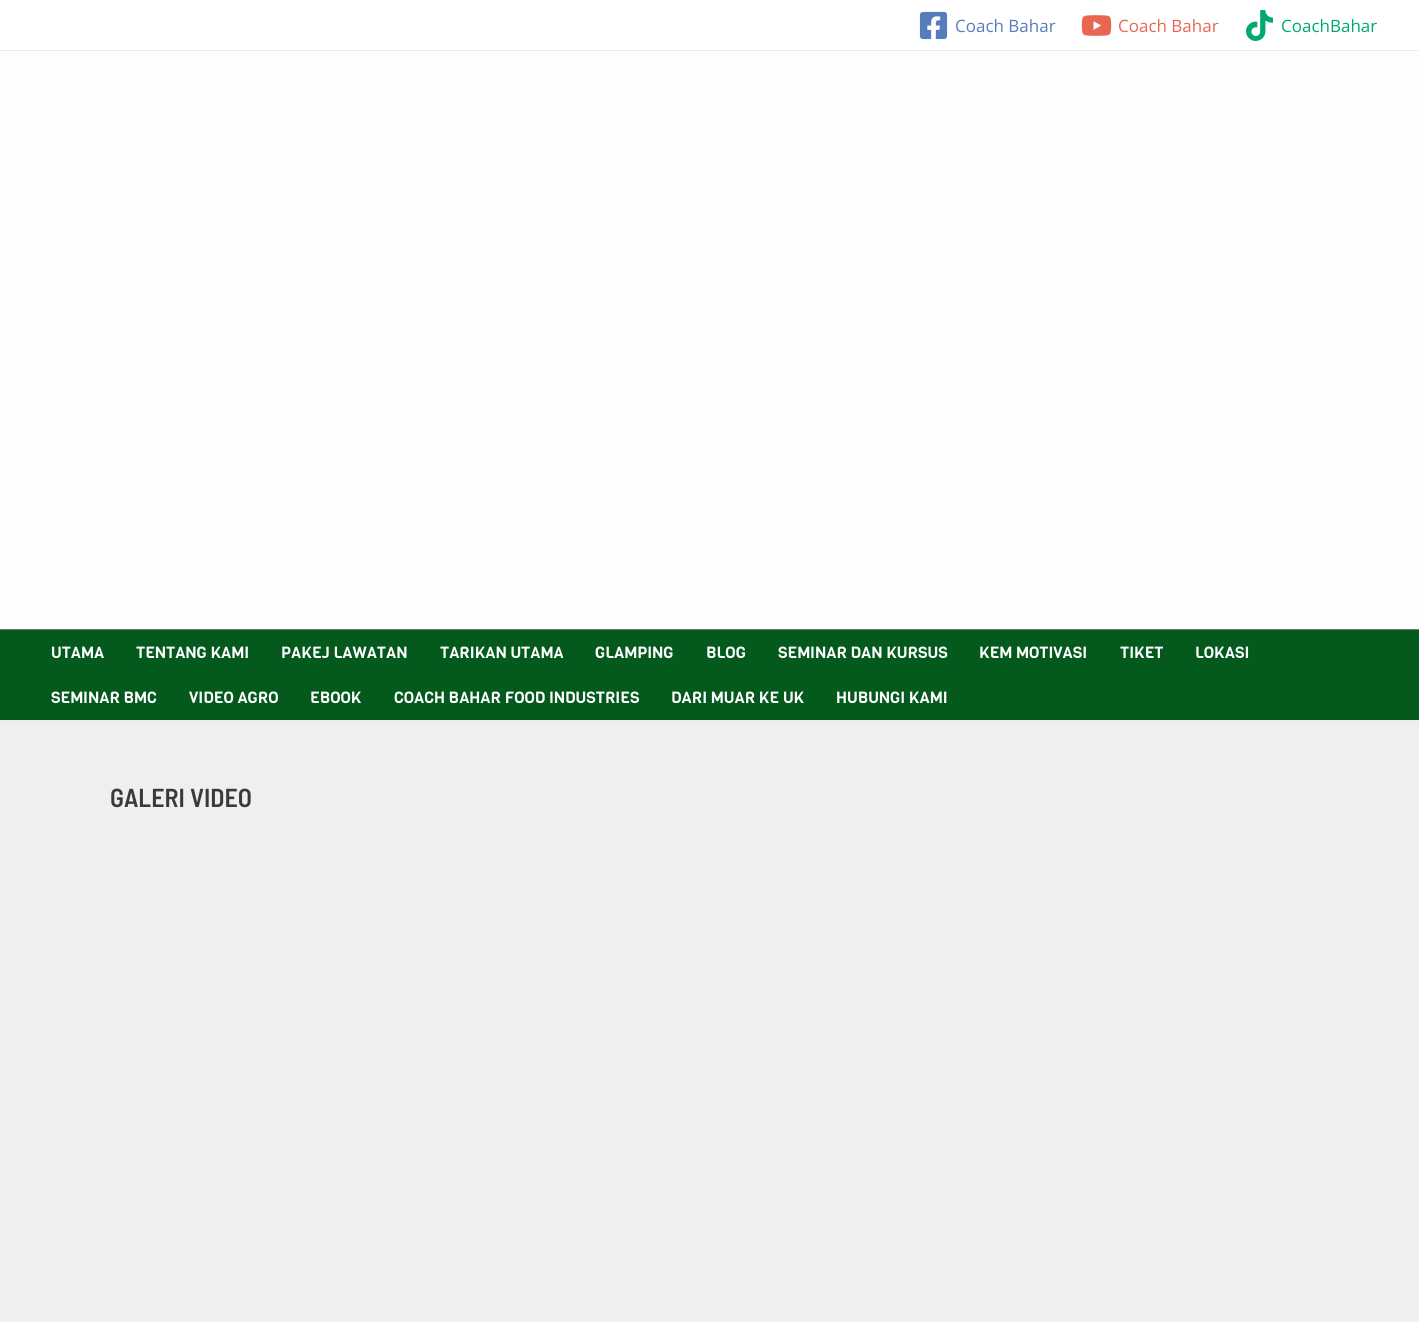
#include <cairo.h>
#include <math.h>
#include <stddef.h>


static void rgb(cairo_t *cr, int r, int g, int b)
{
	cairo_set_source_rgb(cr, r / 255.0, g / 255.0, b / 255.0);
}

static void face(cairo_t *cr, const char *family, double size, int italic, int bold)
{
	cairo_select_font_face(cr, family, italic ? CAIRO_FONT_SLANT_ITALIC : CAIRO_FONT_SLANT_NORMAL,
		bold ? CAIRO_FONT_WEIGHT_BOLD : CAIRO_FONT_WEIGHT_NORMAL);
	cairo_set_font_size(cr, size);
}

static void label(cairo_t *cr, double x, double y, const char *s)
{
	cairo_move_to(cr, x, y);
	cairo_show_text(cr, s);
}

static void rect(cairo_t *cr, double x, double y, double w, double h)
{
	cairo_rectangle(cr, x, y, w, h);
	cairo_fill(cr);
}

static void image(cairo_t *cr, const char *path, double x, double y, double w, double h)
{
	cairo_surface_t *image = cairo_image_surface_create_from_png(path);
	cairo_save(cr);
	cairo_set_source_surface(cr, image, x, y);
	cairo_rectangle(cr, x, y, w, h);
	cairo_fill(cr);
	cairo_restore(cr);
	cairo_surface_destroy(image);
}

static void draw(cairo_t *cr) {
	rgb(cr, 239, 239, 239);
	cairo_paint(cr);
	rgb(cr, 255, 255, 255);
	rect(cr, 0, 0, 1419, 50);
	rgb(cr, 234, 234, 234);
	rect(cr, 0, 50, 1419, 1);
	image(cr, "image0.png", 919, 11, 29, 29);
	face(cr, "Open Sans", 17, 0, 0);
	rgb(cr, 85, 125, 188);
	label(cr, 955, 32, "Coach Bahar");
	image(cr, "image1.png", 1081, 15, 31, 21);
	rgb(cr, 233, 102, 81);
	label(cr, 1118, 32, "Coach Bahar");
	image(cr, "image2.png", 1246, 10, 27, 31);
	rgb(cr, 0, 170, 108);
	label(cr, 1281, 32, "CoachBahar");
	rgb(cr, 254, 254, 254);
	rect(cr, 0, 51, 1419, 578);
	rgb(cr, 117, 117, 117);
	rect(cr, 0, 629, 1419, 1);
	rgb(cr, 4, 89, 29);
	rect(cr, 0, 630, 1419, 90);
	rgb(cr, 234, 234, 234);
	rect(cr, 0, 720, 1419, 1);
	face(cr, "Viga", 16, 0, 0);
	rgb(cr, 255, 255, 255);
	label(cr, 51, 658, "UTAMA");
	label(cr, 136, 658, "TENTANG KAMI");
	label(cr, 281, 658, "PAKEJ LAWATAN");
	label(cr, 440, 658, "TARIKAN UTAMA");
	label(cr, 595, 658, "GLAMPING");
	label(cr, 706, 658, "BLOG");
	label(cr, 778, 658, "SEMINAR DAN KURSUS");
	label(cr, 979, 658, "KEM MOTIVASI");
	label(cr, 1120, 658, "TIKET");
	label(cr, 1195, 658, "LOKASI");
	label(cr, 51, 703, "SEMINAR BMC");
	label(cr, 189, 703, "VIDEO AGRO");
	label(cr, 310, 703, "EBOOK");
	label(cr, 394, 703, "COACH BAHAR FOOD INDUSTRIES");
	label(cr, 671, 703, "DARI MUAR KE UK");
	label(cr, 836, 703, "HUBUNGI KAMI");
	face(cr, "Barlow Semi Condensed SemiBold", 26, 0, 0);
	rgb(cr, 58, 58, 58);
	label(cr, 110, 807, "GALERI VIDEO");
}

int main(void) {
	cairo_surface_t *surface = cairo_image_surface_create(CAIRO_FORMAT_RGB24, 1419, 1322);
	cairo_t *cr = cairo_create(surface);
	cairo_font_options_t *options = cairo_font_options_create();
	cairo_font_options_set_hint_metrics(options, CAIRO_HINT_METRICS_OFF);
	cairo_font_options_set_hint_style(options, CAIRO_HINT_STYLE_NONE);
	cairo_set_font_options(cr, options);
	cairo_set_miter_limit(cr, 4);
	draw(cr);
	cairo_surface_write_to_png(surface, "render.png");
	cairo_font_options_destroy(options);
	cairo_destroy(cr);
	cairo_surface_destroy(surface);
	return 0;
}
